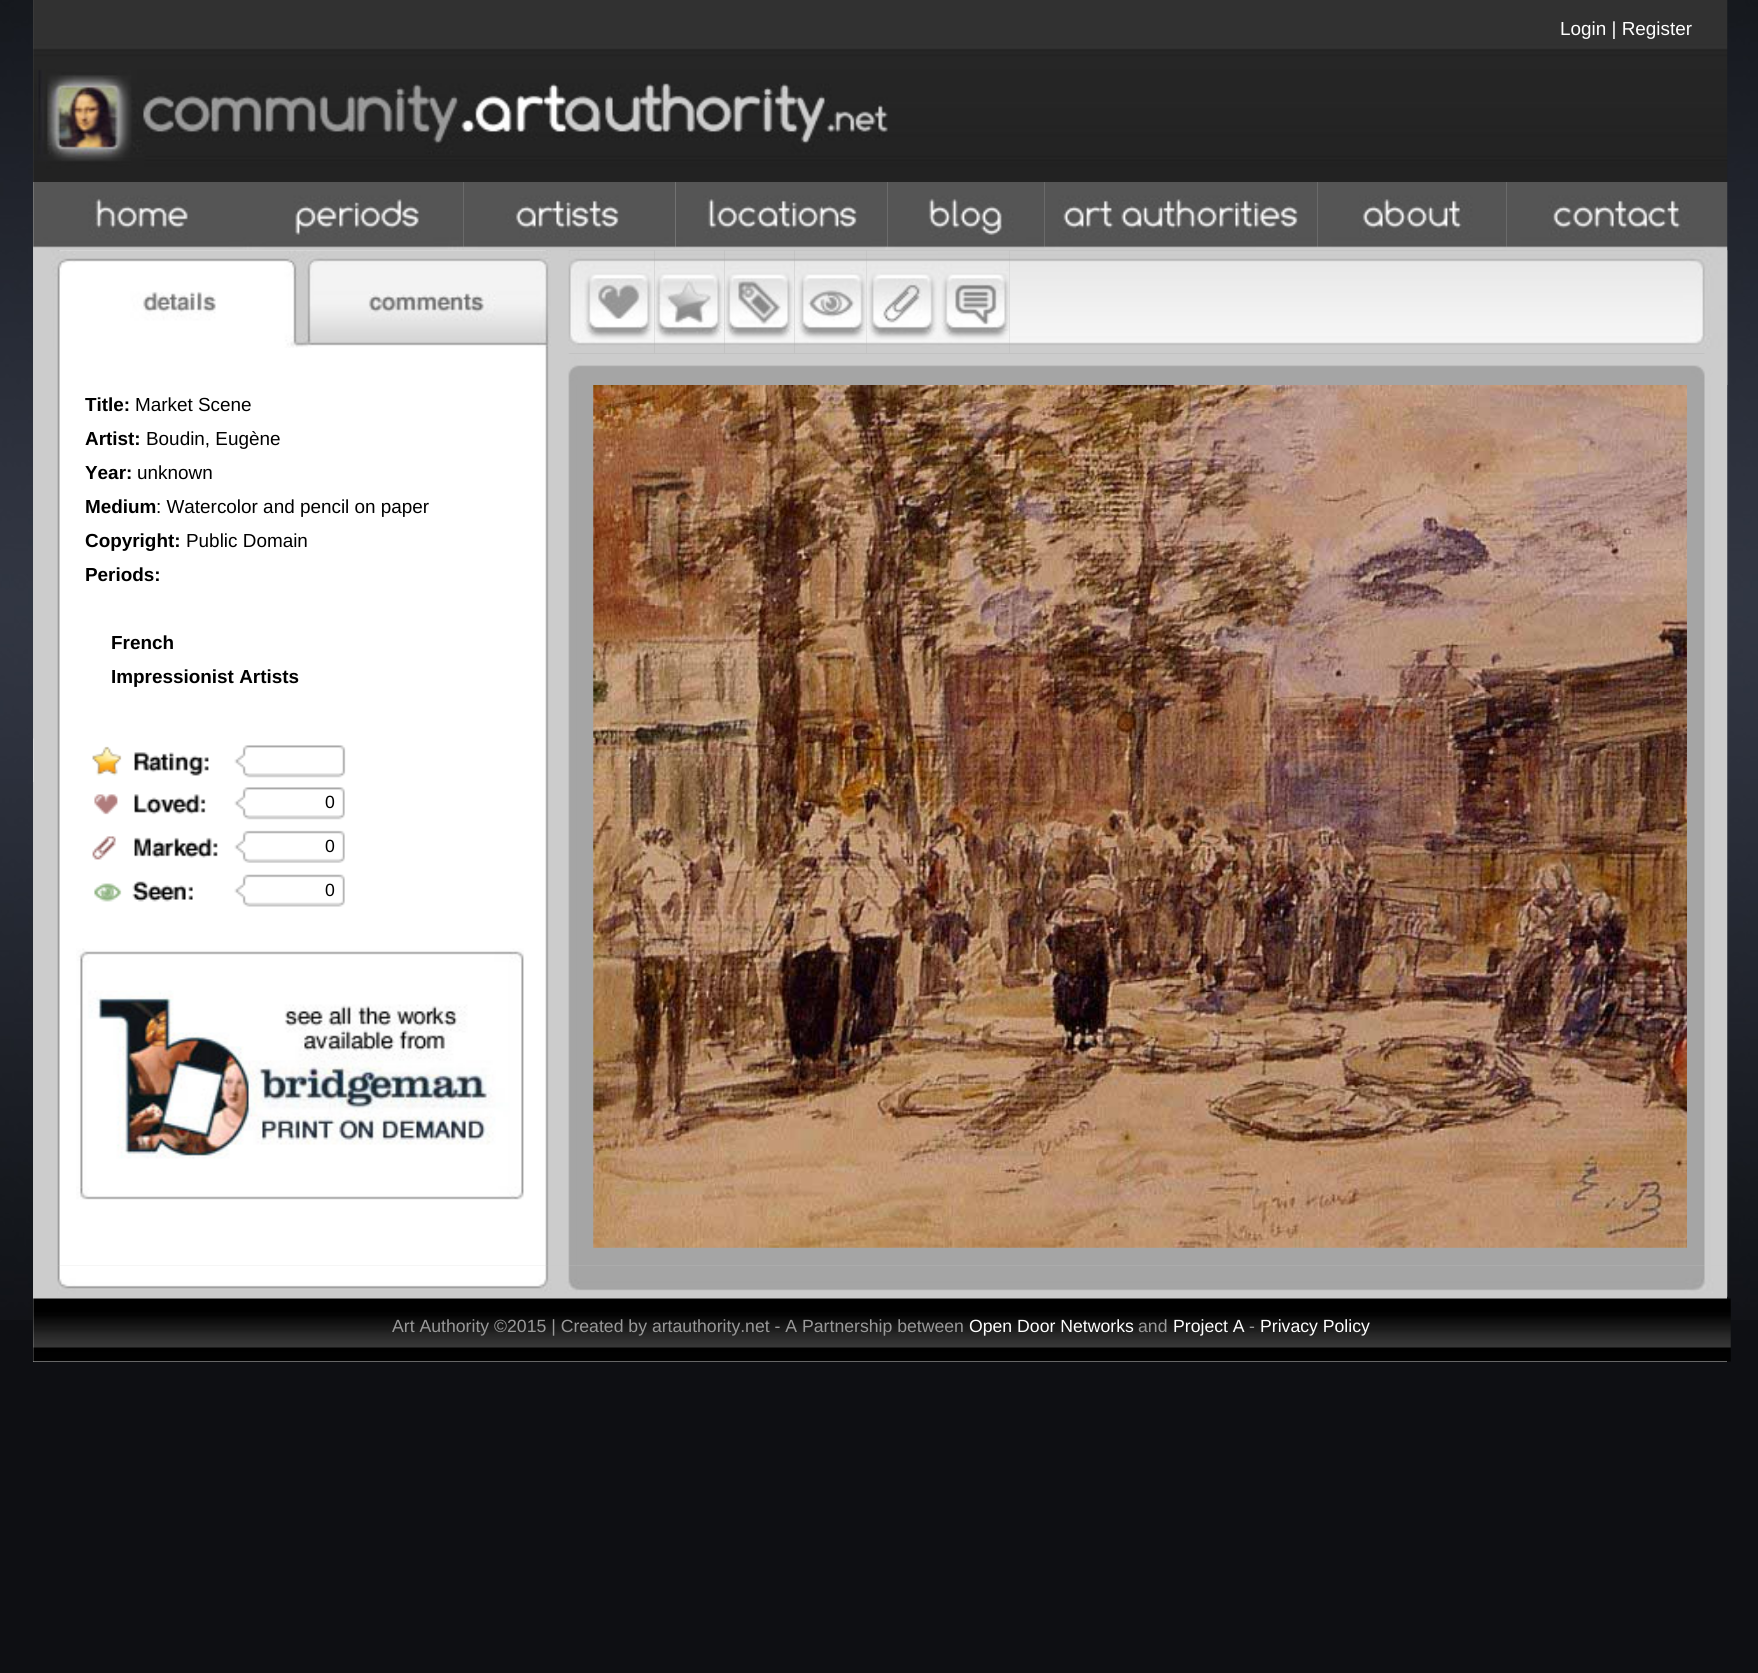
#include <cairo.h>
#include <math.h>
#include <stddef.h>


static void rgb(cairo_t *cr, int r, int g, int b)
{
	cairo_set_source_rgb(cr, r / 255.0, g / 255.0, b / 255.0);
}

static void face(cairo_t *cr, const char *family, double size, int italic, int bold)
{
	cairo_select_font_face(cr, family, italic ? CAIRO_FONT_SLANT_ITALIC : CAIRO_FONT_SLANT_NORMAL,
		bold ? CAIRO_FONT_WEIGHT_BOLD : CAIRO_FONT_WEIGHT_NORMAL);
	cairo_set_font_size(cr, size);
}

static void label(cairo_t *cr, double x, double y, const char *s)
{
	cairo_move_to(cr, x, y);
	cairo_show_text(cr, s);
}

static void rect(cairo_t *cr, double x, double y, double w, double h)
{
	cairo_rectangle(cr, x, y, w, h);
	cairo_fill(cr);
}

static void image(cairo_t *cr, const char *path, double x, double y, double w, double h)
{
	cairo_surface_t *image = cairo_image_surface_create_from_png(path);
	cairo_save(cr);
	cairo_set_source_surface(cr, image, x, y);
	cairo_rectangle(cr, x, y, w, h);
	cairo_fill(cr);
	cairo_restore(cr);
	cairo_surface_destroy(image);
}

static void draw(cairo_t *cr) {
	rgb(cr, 14, 15, 19);
	cairo_paint(cr);
	image(cr, "image0.png", 0, 0, 1758, 1320);
	rgb(cr, 204, 204, 204);
	rect(cr, 33, 0, 1694, 1362);
	image(cr, "image1.png", 33, 0, 1695, 182);
	image(cr, "image2.png", 33, 0, 855, 182);
	face(cr, "Liberation Sans", 18.9, 0, 0);
	rgb(cr, 255, 255, 255);
	label(cr, 1560, 35, "Login | Register");
	image(cr, "image3.png", 33, 182, 219, 68);
	image(cr, "image4.png", 252, 182, 212, 68);
	image(cr, "image5.png", 463, 182, 213, 68);
	image(cr, "image6.png", 675, 182, 213, 68);
	image(cr, "image7.png", 887, 182, 158, 68);
	image(cr, "image8.png", 1044, 182, 274, 68);
	image(cr, "image9.png", 1317, 182, 190, 68);
	image(cr, "image11.png", 57, 250, 1671, 1016);
	image(cr, "image23.png", 938, 250, 72, 104);
	image(cr, "image24.png", 1009, 250, 719, 104);
	image(cr, "image10.png", 1506, 182, 222, 69);
	image(cr, "image12.png", 51, 250, 500, 98);
	face(cr, "Liberation Sans", 18.9, 0, 1);
	rgb(cr, 0, 0, 0);
	label(cr, 85, 411, "Title:");
	face(cr, "Liberation Sans", 18.9, 0, 0);
	label(cr, 135, 411, "Market Scene");
	face(cr, "Liberation Sans", 18.9, 0, 1);
	label(cr, 85, 445, "Artist:");
	face(cr, "Liberation Sans", 18.9, 0, 0);
	label(cr, 146, 445, "Boudin, Eugène");
	face(cr, "Liberation Sans", 18.9, 0, 1);
	label(cr, 85, 479, "Year:");
	face(cr, "Liberation Sans", 18.9, 0, 0);
	label(cr, 137, 479, "unknown");
	face(cr, "Liberation Sans", 18.9, 0, 1);
	label(cr, 85, 513, "Medium");
	face(cr, "Liberation Sans", 18.9, 0, 0);
	label(cr, 156, 513, ": Watercolor and pencil on paper");
	face(cr, "Liberation Sans", 18.9, 0, 1);
	label(cr, 85, 547, "Copyright:");
	face(cr, "Liberation Sans", 18.9, 0, 0);
	label(cr, 186, 547, "Public Domain");
	face(cr, "Liberation Sans", 18.9, 0, 1);
	label(cr, 85, 581, "Periods:");
	label(cr, 111, 649, "French");
	label(cr, 111, 683, "Impressionist Artists");
	image(cr, "image13.png", 33, 738, 313, 44);
	image(cr, "image14.png", 94, 787, 251, 33);
	face(cr, "Liberation Sans", 17.65, 0, 0);
	label(cr, 325, 808, "0");
	image(cr, "image15.png", 92, 830, 253, 33);
	label(cr, 325, 852, "0");
	image(cr, "image16.png", 94, 874, 251, 33);
	label(cr, 325, 896, "0");
	image(cr, "image17.png", 76, 948, 448, 252);
	image(cr, "image18.png", 568, 250, 87, 104);
	image(cr, "image19.png", 654, 250, 71, 104);
	image(cr, "image20.png", 724, 250, 71, 104);
	image(cr, "image21.png", 794, 250, 73, 104);
	image(cr, "image22.png", 866, 250, 72, 104);
	image(cr, "image25.png", 568, 353, 1160, 32);
	image(cr, "image26.png", 593, 385, 1094, 863);
	image(cr, "image27.png", 57, 1265, 1671, 32);
	image(cr, "image28.png", 33, 1298, 1698, 64);
	rgb(cr, 153, 153, 153);
	label(cr, 392, 1332, "Art Authority ©2015 | Created by artauthority.net - A Partnership between");
	rgb(cr, 255, 255, 255);
	label(cr, 969, 1332, "Open Door Networks");
	rgb(cr, 153, 153, 153);
	label(cr, 1138, 1332, "and");
	rgb(cr, 255, 255, 255);
	label(cr, 1173, 1332, "Project A");
	rgb(cr, 153, 153, 153);
	label(cr, 1249, 1332, "-");
	rgb(cr, 255, 255, 255);
	label(cr, 1260, 1332, "Privacy Policy");
}

int main(void) {
	cairo_surface_t *surface = cairo_image_surface_create(CAIRO_FORMAT_RGB24, 1758, 1673);
	cairo_t *cr = cairo_create(surface);
	cairo_font_options_t *options = cairo_font_options_create();
	cairo_font_options_set_hint_metrics(options, CAIRO_HINT_METRICS_OFF);
	cairo_font_options_set_hint_style(options, CAIRO_HINT_STYLE_NONE);
	cairo_set_font_options(cr, options);
	cairo_set_miter_limit(cr, 4);
	draw(cr);
	cairo_surface_write_to_png(surface, "render.png");
	cairo_font_options_destroy(options);
	cairo_destroy(cr);
	cairo_surface_destroy(surface);
	return 0;
}
